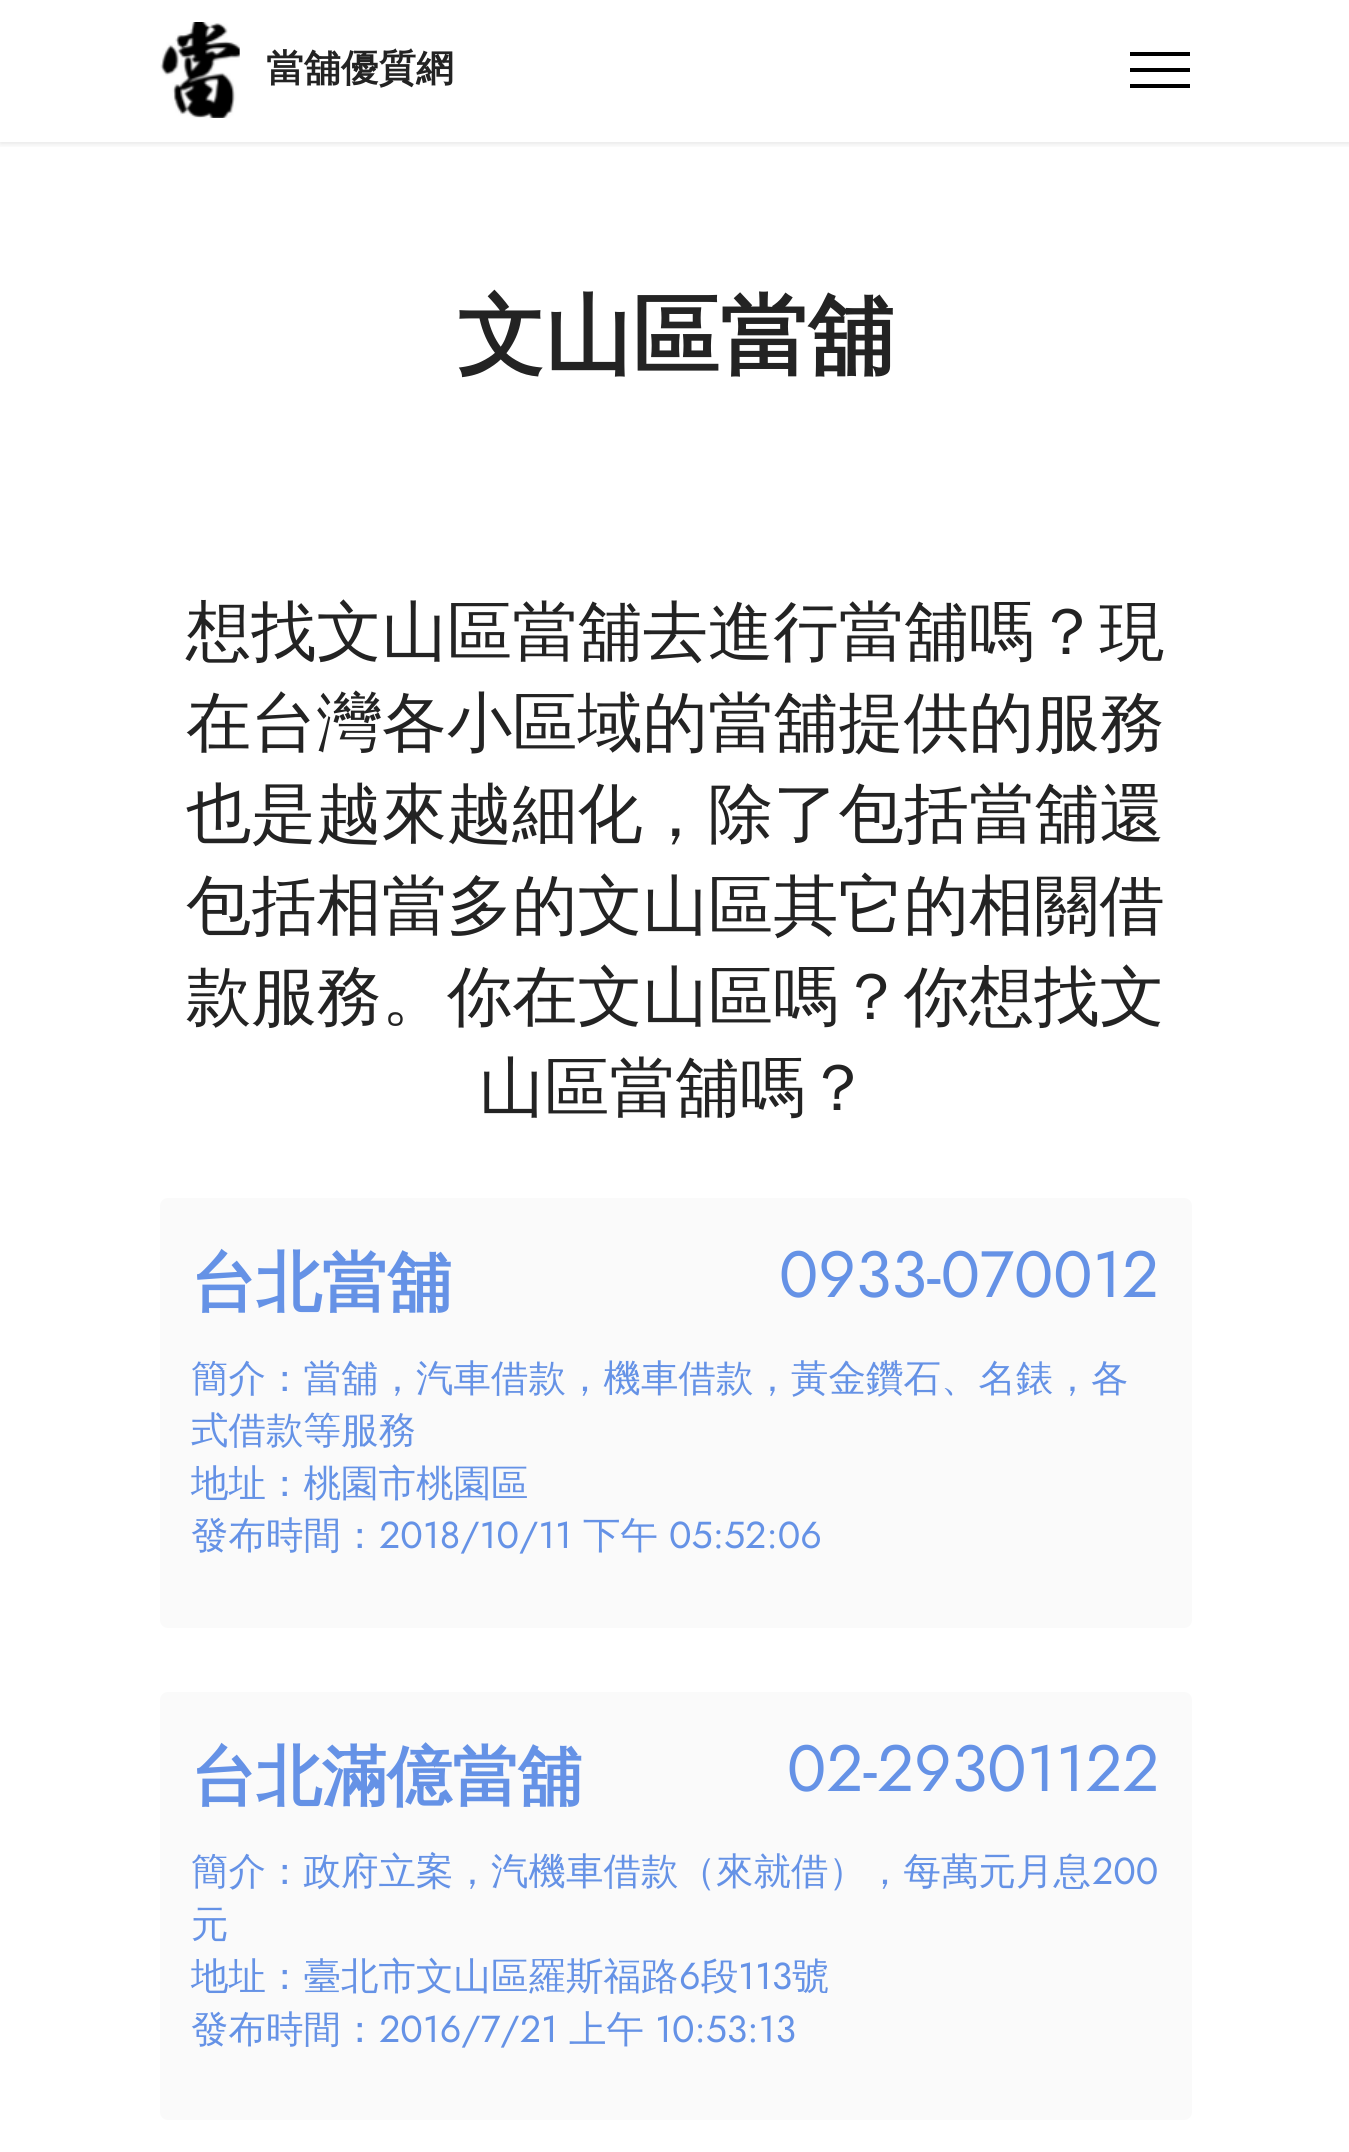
#include <cairo.h>
#include <math.h>
#include <stddef.h>


static void rgb(cairo_t *cr, int r, int g, int b)
{
	cairo_set_source_rgb(cr, r / 255.0, g / 255.0, b / 255.0);
}

static void face(cairo_t *cr, const char *family, double size, int italic, int bold)
{
	cairo_select_font_face(cr, family, italic ? CAIRO_FONT_SLANT_ITALIC : CAIRO_FONT_SLANT_NORMAL,
		bold ? CAIRO_FONT_WEIGHT_BOLD : CAIRO_FONT_WEIGHT_NORMAL);
	cairo_set_font_size(cr, size);
}

static void label(cairo_t *cr, double x, double y, const char *s)
{
	cairo_move_to(cr, x, y);
	cairo_show_text(cr, s);
}

static void rect(cairo_t *cr, double x, double y, double w, double h)
{
	cairo_rectangle(cr, x, y, w, h);
	cairo_fill(cr);
}

static void rrect(cairo_t *cr, double x, double y, double w, double h, double r)
{
	cairo_new_sub_path(cr);
	cairo_arc(cr, x + w - r, y + h - r, r, 0, M_PI / 2);
	cairo_arc(cr, x + r, y + h - r, r, M_PI / 2, M_PI);
	cairo_arc(cr, x + r, y + r, r, M_PI, 1.5 * M_PI);
	cairo_arc(cr, x + w - r, y + r, r, 1.5 * M_PI, 2 * M_PI);
	cairo_close_path(cr);
}

static void soft_shadow(cairo_t *cr, double x, double y, double w, double h, double r, double blur, double alpha)
{
	cairo_push_group_with_content(cr, CAIRO_CONTENT_ALPHA);
	cairo_set_operator(cr, CAIRO_OPERATOR_SOURCE);
	for (int i = 15; i >= -15 && fmin(w, h) + blur * i / 3 > 0; i -= 2) {
		double e = blur * i / 6;
		cairo_set_source_rgba(cr, 0, 0, 0, alpha * erfc((i - 1) / 8.5) / 2);
		rrect(cr, x - e, y - e, w + 2 * e, h + 2 * e, fmax(0, fmin(r + e + blur * .6, fmin(w, h) / 2 + e)));
		cairo_fill(cr);
	}
	cairo_pattern_t *soft = cairo_pop_group(cr);
	cairo_mask(cr, soft);
	cairo_pattern_destroy(soft);
}

static void image(cairo_t *cr, const char *path, double x, double y, double w, double h)
{
	cairo_surface_t *image = cairo_image_surface_create_from_png(path);
	cairo_save(cr);
	cairo_set_source_surface(cr, image, x, y);
	cairo_rectangle(cr, x, y, w, h);
	cairo_fill(cr);
	cairo_restore(cr);
	cairo_surface_destroy(image);
}

static void draw(cairo_t *cr) {
	rgb(cr, 255, 255, 255);
	cairo_paint(cr);
	cairo_save(cr);
	cairo_rectangle(cr, 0, 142, 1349, 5);
	cairo_clip(cr);
	rgb(cr, 0, 0, 0);
	soft_shadow(cr, 0, 2, 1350, 142, 0, 3, 0.1);
	cairo_restore(cr);
	image(cr, "image0.png", 160, 22, 80, 96);
	face(cr, "WenQuanYi Zen Hei", 37.5, 0, 1);
	rgb(cr, 35, 35, 35);
	label(cr, 266, 81, "當舖優質網");
	rgb(cr, 0, 0, 0);
	rect(cr, 1130, 52, 60, 4);
	rect(cr, 1130, 68, 60, 4);
	rect(cr, 1130, 84, 60, 4);
	face(cr, "WenQuanYi Zen Hei", 87.5, 0, 1);
	rgb(cr, 35, 35, 35);
	label(cr, 457, 366, "文山區當舖");
	face(cr, "WenQuanYi Zen Hei Medium", 65.25, 0, 0);
	label(cr, 186, 654, "想找文山區當舖去進行當舖嗎？現");
	label(cr, 186, 745, "在台灣各小區域的當舖提供的服務");
	label(cr, 186, 836, "也是越來越細化，除了包括當舖還");
	label(cr, 186, 928, "包括相當多的文山區其它的相關借");
	label(cr, 186, 1019, "款服務。你在文山區嗎？你想找文");
	label(cr, 479, 1110, "山區當舖嗎？");
	rgb(cr, 250, 250, 250);
	rrect(cr, 160, 1198, 1032, 430, 8);
	cairo_fill(cr);
	face(cr, "WenQuanYi Zen Hei", 65.25, 0, 1);
	rgb(cr, 101, 146, 230);
	label(cr, 191, 1305, "台北當舖");
	face(cr, "Jost", 65.25, 0, 0);
	label(cr, 779, 1297, "0933-070012");
	face(cr, "WenQuanYi Zen Hei Medium", 37.5, 0, 0);
	label(cr, 191, 1391, "簡介：當舖，汽車借款，機車借款，黃金鑽石、名錶，各");
	label(cr, 191, 1443, "式借款等服務");
	label(cr, 191, 1496, "地址：桃園市桃園區");
	label(cr, 191, 1548, "發布時間：");
	face(cr, "Jost", 37.5, 0, 0);
	label(cr, 379, 1548, "2018/10/11");
	face(cr, "WenQuanYi Zen Hei Medium", 37.5, 0, 0);
	label(cr, 583, 1548, "下午");
	face(cr, "Jost", 37.5, 0, 0);
	label(cr, 669, 1548, "05:52:06");
	rgb(cr, 250, 250, 250);
	rrect(cr, 160, 1692, 1032, 428, 8);
	cairo_fill(cr);
	face(cr, "WenQuanYi Zen Hei", 65.25, 0, 1);
	rgb(cr, 101, 146, 230);
	label(cr, 191, 1799, "台北滿億當舖");
	face(cr, "Jost", 65.25, 0, 0);
	label(cr, 787, 1791, "02-29301122");
	face(cr, "WenQuanYi Zen Hei Medium", 37.5, 0, 0);
	label(cr, 191, 1884, "簡介：政府立案，汽機車借款（來就借），每萬元月息");
	face(cr, "Jost", 37.5, 0, 0);
	label(cr, 1092, 1884, "200");
	face(cr, "WenQuanYi Zen Hei Medium", 37.5, 0, 0);
	label(cr, 191, 1937, "元");
	label(cr, 191, 1989, "地址：臺北市文山區羅斯福路");
	face(cr, "Jost", 37.5, 0, 0);
	label(cr, 679, 1989, "6");
	face(cr, "WenQuanYi Zen Hei Medium", 37.5, 0, 0);
	label(cr, 701, 1989, "段");
	face(cr, "Jost", 37.5, 0, 0);
	label(cr, 738, 1989, "113");
	face(cr, "WenQuanYi Zen Hei Medium", 37.5, 0, 0);
	label(cr, 792, 1989, "號");
	label(cr, 191, 2042, "發布時間：");
	face(cr, "Jost", 37.5, 0, 0);
	label(cr, 379, 2042, "2016/7/21");
	face(cr, "WenQuanYi Zen Hei Medium", 37.5, 0, 0);
	label(cr, 569, 2042, "上午");
	face(cr, "Jost", 37.5, 0, 0);
	label(cr, 655, 2042, "10:53:13");
}

int main(void) {
	cairo_surface_t *surface = cairo_image_surface_create(CAIRO_FORMAT_RGB24, 1349, 2152);
	cairo_t *cr = cairo_create(surface);
	cairo_font_options_t *options = cairo_font_options_create();
	cairo_font_options_set_hint_metrics(options, CAIRO_HINT_METRICS_OFF);
	cairo_font_options_set_hint_style(options, CAIRO_HINT_STYLE_NONE);
	cairo_set_font_options(cr, options);
	cairo_set_miter_limit(cr, 4);
	draw(cr);
	cairo_surface_write_to_png(surface, "render.png");
	cairo_font_options_destroy(options);
	cairo_destroy(cr);
	cairo_surface_destroy(surface);
	return 0;
}
